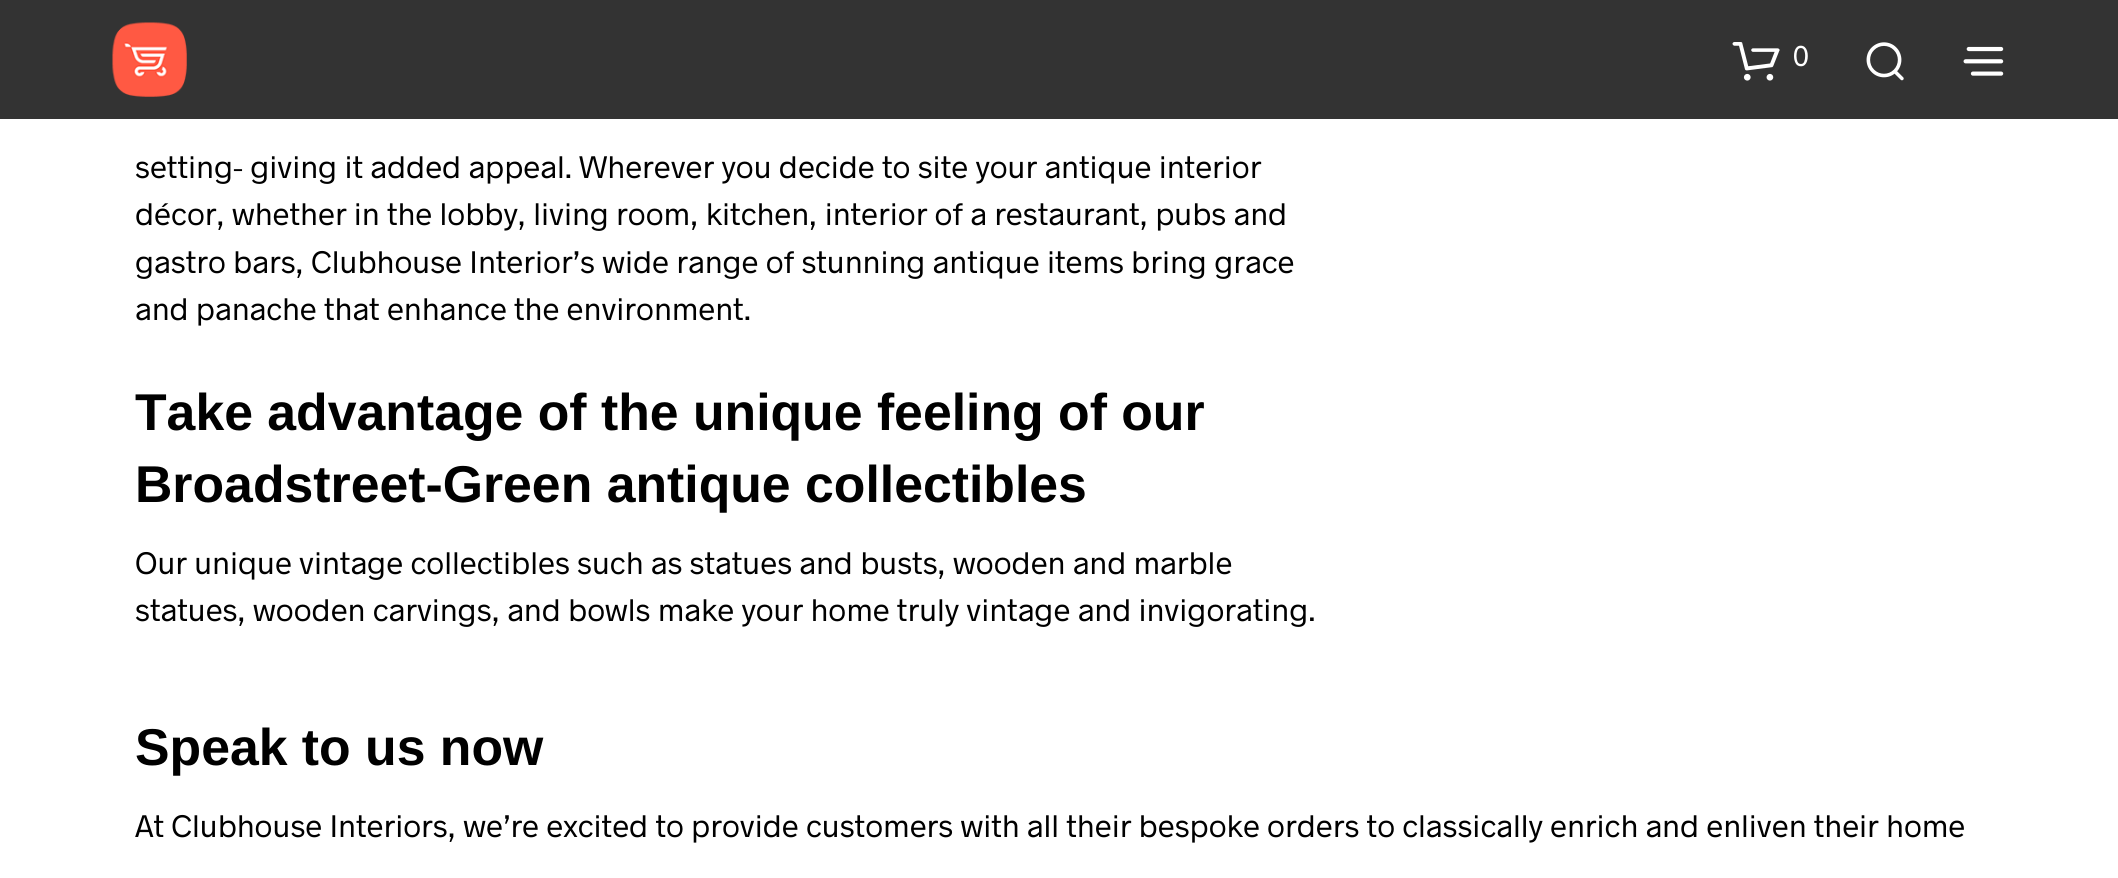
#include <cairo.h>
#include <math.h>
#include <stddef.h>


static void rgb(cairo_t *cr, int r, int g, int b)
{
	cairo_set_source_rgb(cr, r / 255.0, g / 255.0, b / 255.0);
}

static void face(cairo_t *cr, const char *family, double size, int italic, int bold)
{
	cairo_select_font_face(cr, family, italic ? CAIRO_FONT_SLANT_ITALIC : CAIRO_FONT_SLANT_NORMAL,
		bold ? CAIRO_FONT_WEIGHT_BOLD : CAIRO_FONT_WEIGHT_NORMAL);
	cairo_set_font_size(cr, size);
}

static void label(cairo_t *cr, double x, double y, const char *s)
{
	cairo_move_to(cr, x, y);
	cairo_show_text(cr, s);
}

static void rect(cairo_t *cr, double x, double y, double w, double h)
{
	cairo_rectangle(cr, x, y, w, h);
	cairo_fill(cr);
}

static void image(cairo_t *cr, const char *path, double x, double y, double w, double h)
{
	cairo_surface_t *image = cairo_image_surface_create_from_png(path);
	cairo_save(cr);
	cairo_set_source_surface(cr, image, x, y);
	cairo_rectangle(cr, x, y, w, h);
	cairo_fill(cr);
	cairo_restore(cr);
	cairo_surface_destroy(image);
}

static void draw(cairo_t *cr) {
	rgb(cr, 255, 255, 255);
	cairo_paint(cr);
	rgb(cr, 51, 51, 51);
	rect(cr, 0, 0, 2118, 119);
	image(cr, "image0.png", 112, 22, 75, 75);
	image(cr, "image1.png", 1732, 42, 48, 39);
	face(cr, "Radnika", 29, 0, 0);
	rgb(cr, 255, 255, 255);
	label(cr, 1793, 66, "0");
	image(cr, "image2.png", 1866, 42, 38, 39);
	image(cr, "image3.png", 1963, 46, 41, 30);
	face(cr, "Radnika", 31.5, 0, 0);
	rgb(cr, 0, 0, 0);
	label(cr, 135, 178, "setting- giving it added appeal. Wherever you decide to site your antique interior");
	label(cr, 135, 225, "décor, whether in the lobby, living room, kitchen, interior of a restaurant, pubs and");
	label(cr, 135, 273, "gastro bars, Clubhouse Interior’s wide range of stunning antique items bring grace");
	label(cr, 135, 320, "and panache that enhance the environment.");
	face(cr, "Liberation Sans", 51.75, 0, 1);
	label(cr, 135, 430, "Take advantage of the unique feeling of our");
	label(cr, 135, 502, "Broadstreet-Green antique collectibles");
	face(cr, "Radnika", 31.5, 0, 0);
	label(cr, 135, 574, "Our unique vintage collectibles such as statues and busts, wooden and marble");
	label(cr, 135, 621, "statues, wooden carvings, and bowls make your home truly vintage and invigorating.");
	face(cr, "Liberation Sans", 51.75, 0, 1);
	label(cr, 135, 765, "Speak to us now");
	face(cr, "Radnika", 31.5, 0, 0);
	label(cr, 135, 837, "At Clubhouse Interiors, we’re excited to provide customers with all their bespoke orders to classically enrich and enliven their home");
}

int main(void) {
	cairo_surface_t *surface = cairo_image_surface_create(CAIRO_FORMAT_RGB24, 2118, 878);
	cairo_t *cr = cairo_create(surface);
	cairo_font_options_t *options = cairo_font_options_create();
	cairo_font_options_set_hint_metrics(options, CAIRO_HINT_METRICS_OFF);
	cairo_font_options_set_hint_style(options, CAIRO_HINT_STYLE_NONE);
	cairo_set_font_options(cr, options);
	cairo_set_miter_limit(cr, 4);
	draw(cr);
	cairo_surface_write_to_png(surface, "render.png");
	cairo_font_options_destroy(options);
	cairo_destroy(cr);
	cairo_surface_destroy(surface);
	return 0;
}
